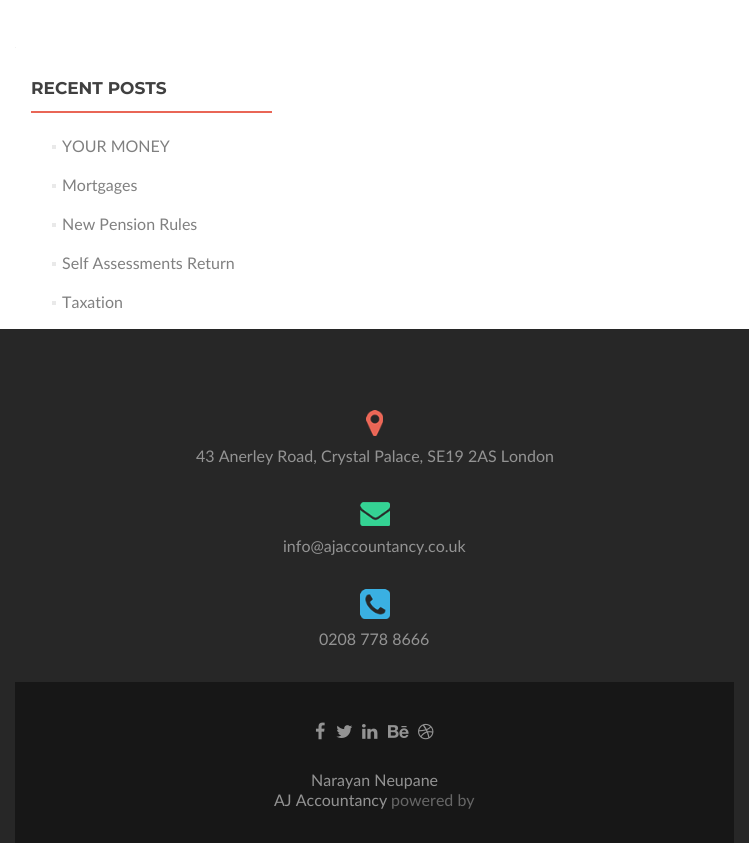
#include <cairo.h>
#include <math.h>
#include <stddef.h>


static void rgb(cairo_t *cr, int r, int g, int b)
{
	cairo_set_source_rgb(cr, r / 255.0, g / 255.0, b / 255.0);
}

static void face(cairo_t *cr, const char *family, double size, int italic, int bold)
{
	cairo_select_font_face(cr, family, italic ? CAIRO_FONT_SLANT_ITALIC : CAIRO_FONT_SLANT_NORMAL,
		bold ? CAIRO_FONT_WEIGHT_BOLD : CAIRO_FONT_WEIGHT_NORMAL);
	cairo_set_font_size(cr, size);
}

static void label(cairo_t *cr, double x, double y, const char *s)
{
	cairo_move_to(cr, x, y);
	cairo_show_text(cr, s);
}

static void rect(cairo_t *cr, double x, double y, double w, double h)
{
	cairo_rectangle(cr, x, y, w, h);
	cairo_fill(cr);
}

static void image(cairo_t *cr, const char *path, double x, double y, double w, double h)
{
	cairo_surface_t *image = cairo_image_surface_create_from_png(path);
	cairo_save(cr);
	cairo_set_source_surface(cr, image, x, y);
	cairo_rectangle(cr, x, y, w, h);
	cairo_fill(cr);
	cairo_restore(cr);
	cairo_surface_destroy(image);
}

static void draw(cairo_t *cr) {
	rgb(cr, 255, 255, 255);
	cairo_paint(cr);
	rgb(cr, 242, 242, 242);
	rect(cr, 15, 47, 1, 1);
	face(cr, "Montserrat", 17, 0, 1);
	rgb(cr, 64, 64, 64);
	label(cr, 31, 94, "RECENT POSTS");
	rgb(cr, 233, 102, 86);
	rect(cr, 31, 111, 241, 2);
	rgb(cr, 233, 233, 233);
	rect(cr, 52, 145, 4, 4);
	face(cr, "Lato", 16, 0, 0);
	rgb(cr, 128, 128, 128);
	label(cr, 62, 152, "YOUR MONEY");
	rgb(cr, 233, 233, 233);
	rect(cr, 52, 184, 4, 4);
	rgb(cr, 128, 128, 128);
	label(cr, 62, 191, "Mortgages");
	rgb(cr, 233, 233, 233);
	rect(cr, 52, 223, 4, 4);
	rgb(cr, 128, 128, 128);
	label(cr, 62, 230, "New Pension Rules");
	rgb(cr, 233, 233, 233);
	rect(cr, 52, 262, 4, 4);
	rgb(cr, 128, 128, 128);
	label(cr, 62, 269, "Self Assessments Return");
	rgb(cr, 233, 233, 233);
	rect(cr, 52, 301, 4, 4);
	rgb(cr, 128, 128, 128);
	label(cr, 62, 308, "Taxation");
	rgb(cr, 39, 39, 39);
	rect(cr, 0, 329, 749, 514);
	image(cr, "image0.png", 366, 410, 17, 26);
	rgb(cr, 147, 147, 147);
	label(cr, 196, 462, "43 Anerley Road, Crystal Palace, SE19 2AS London");
	image(cr, "image1.png", 360, 502, 30, 24);
	label(cr, 283, 552, "info@ajaccountancy.co.uk");
	image(cr, "image2.png", 360, 589, 30, 30);
	label(cr, 319, 645, "0208 778 8666");
	rgb(cr, 23, 23, 23);
	rect(cr, 15, 682, 719, 161);
	image(cr, "image3.png", 315, 722, 10, 18);
	image(cr, "image4.png", 336, 725, 17, 13);
	image(cr, "image5.png", 362, 724, 16, 15);
	image(cr, "image6.png", 388, 725, 21, 13);
	image(cr, "image7.png", 418, 723, 16, 17);
	rgb(cr, 147, 147, 147);
	label(cr, 311, 786, "Narayan Neupane");
	label(cr, 274, 806, "AJ Accountancy");
	rgb(cr, 102, 102, 102);
	label(cr, 391, 806, "powered by");
}

int main(void) {
	cairo_surface_t *surface = cairo_image_surface_create(CAIRO_FORMAT_RGB24, 749, 843);
	cairo_t *cr = cairo_create(surface);
	cairo_font_options_t *options = cairo_font_options_create();
	cairo_font_options_set_hint_metrics(options, CAIRO_HINT_METRICS_OFF);
	cairo_font_options_set_hint_style(options, CAIRO_HINT_STYLE_NONE);
	cairo_set_font_options(cr, options);
	cairo_set_miter_limit(cr, 4);
	draw(cr);
	cairo_surface_write_to_png(surface, "render.png");
	cairo_font_options_destroy(options);
	cairo_destroy(cr);
	cairo_surface_destroy(surface);
	return 0;
}
